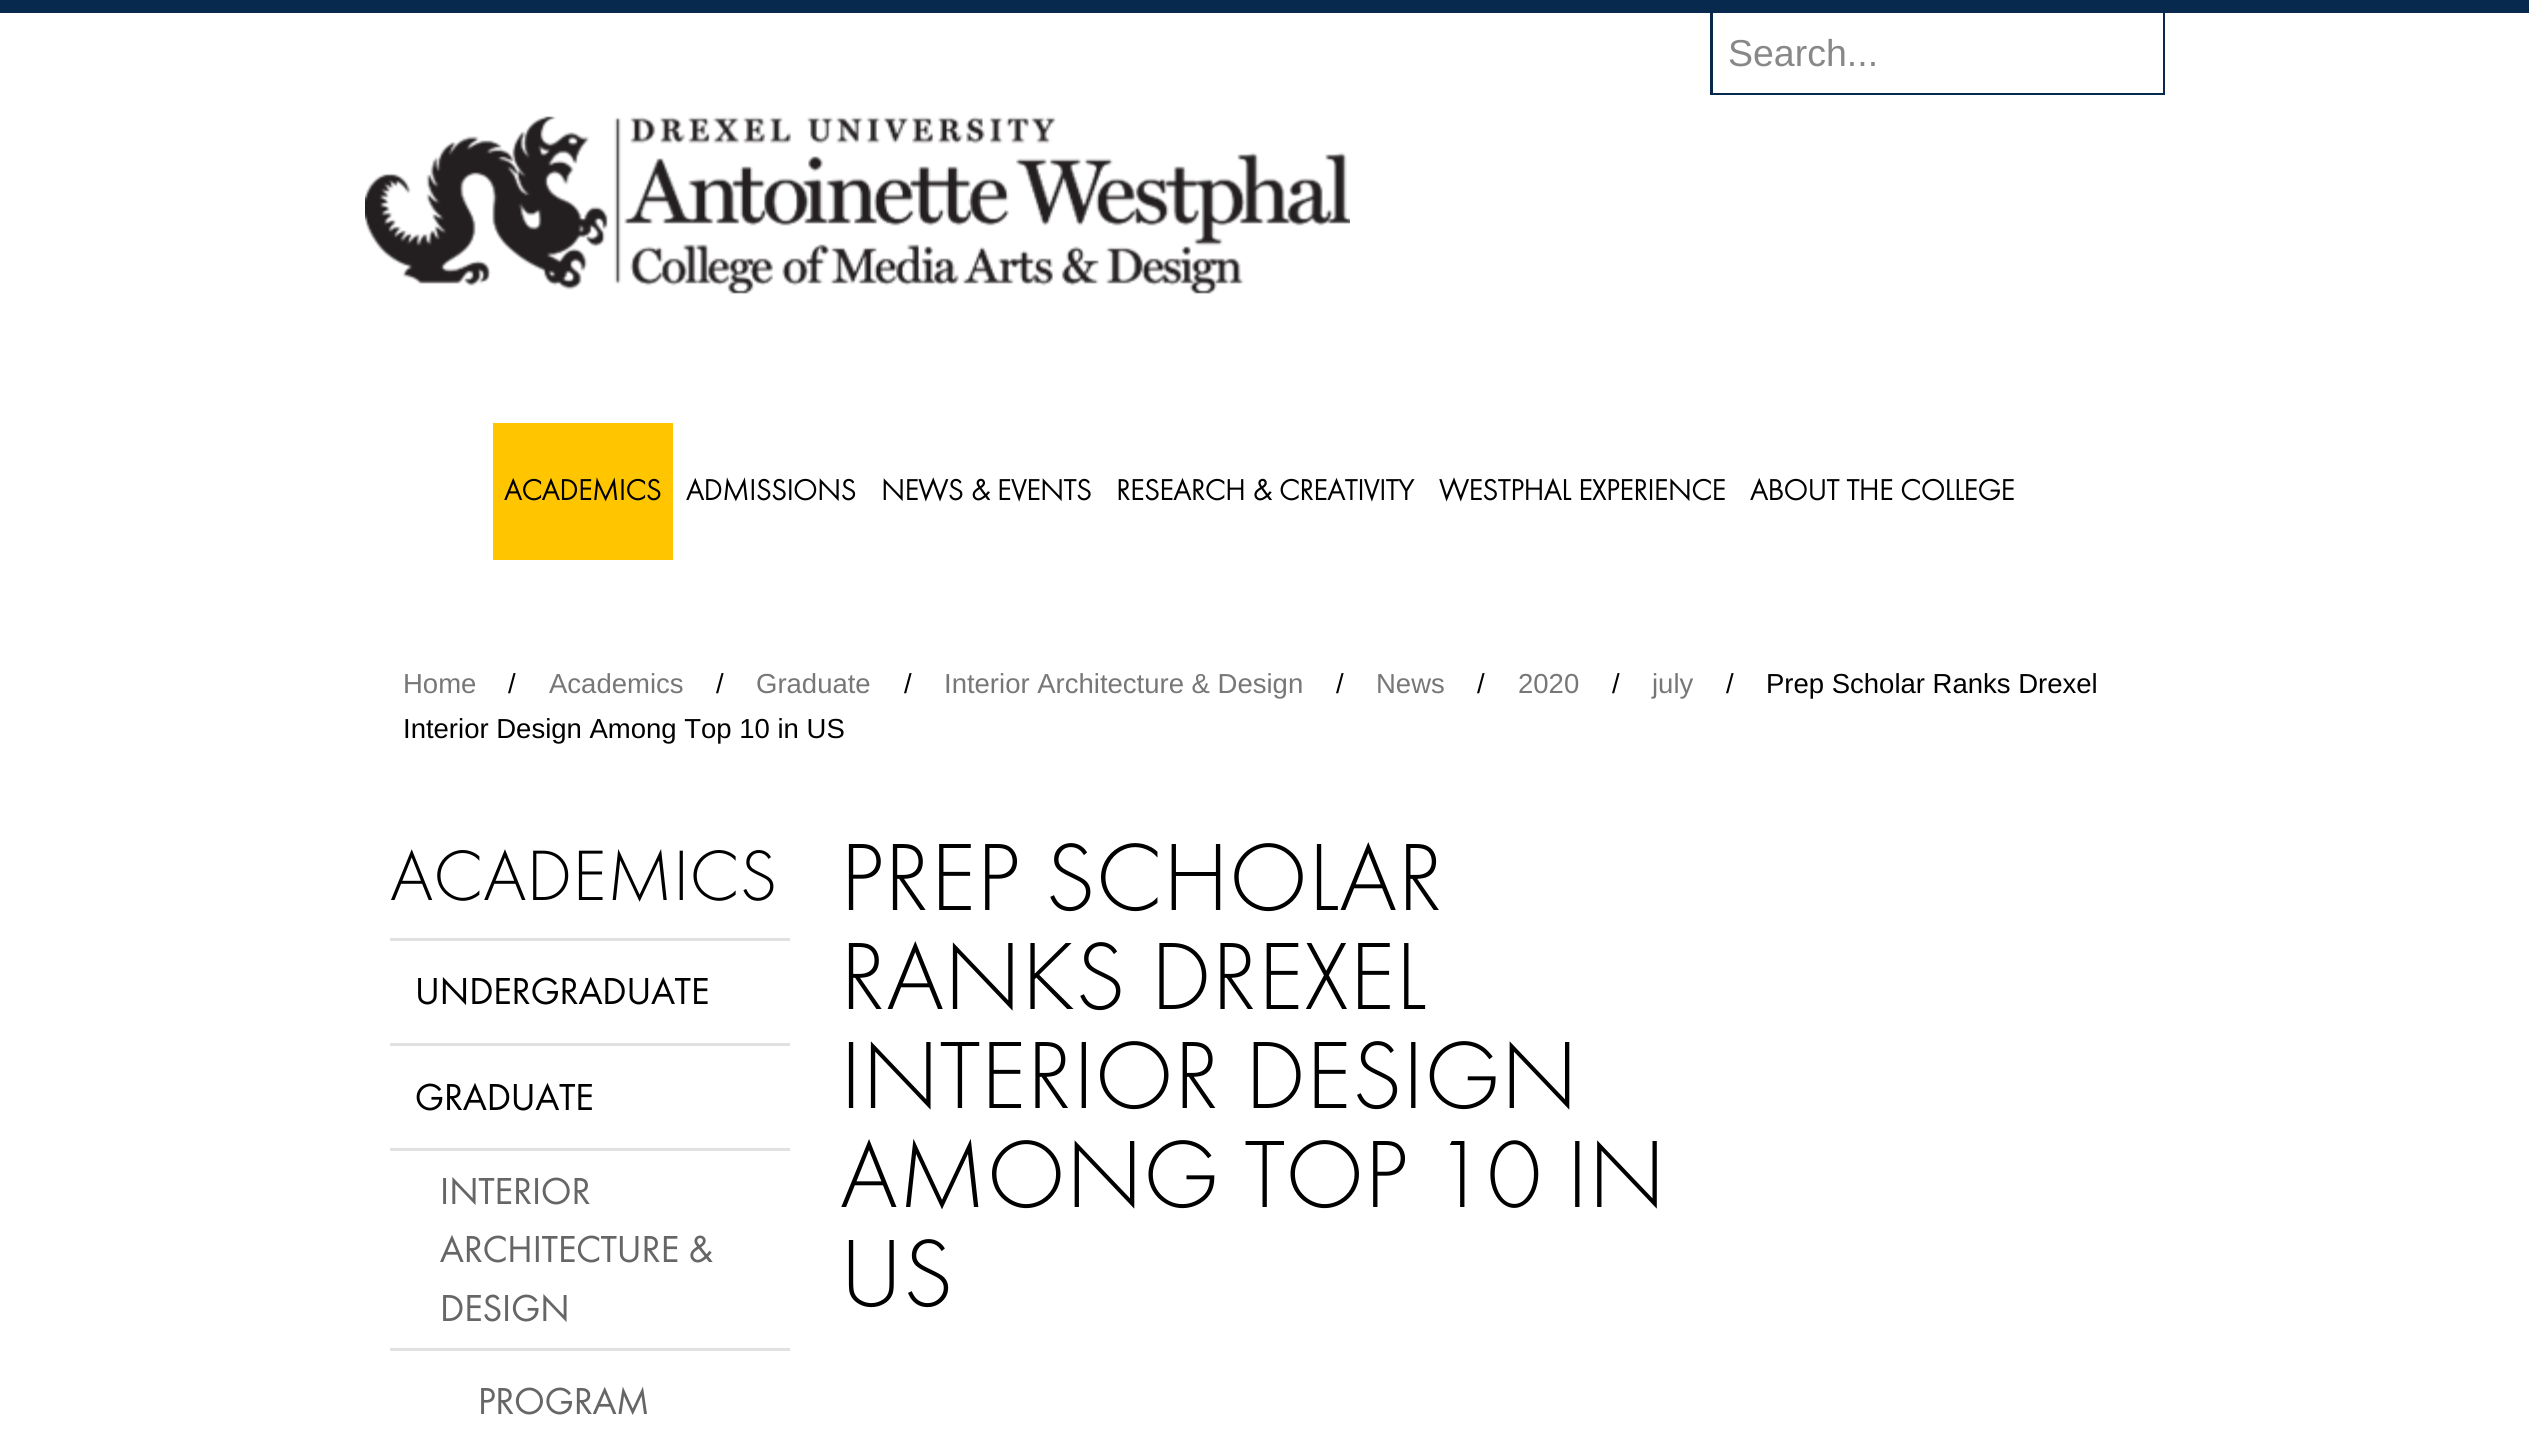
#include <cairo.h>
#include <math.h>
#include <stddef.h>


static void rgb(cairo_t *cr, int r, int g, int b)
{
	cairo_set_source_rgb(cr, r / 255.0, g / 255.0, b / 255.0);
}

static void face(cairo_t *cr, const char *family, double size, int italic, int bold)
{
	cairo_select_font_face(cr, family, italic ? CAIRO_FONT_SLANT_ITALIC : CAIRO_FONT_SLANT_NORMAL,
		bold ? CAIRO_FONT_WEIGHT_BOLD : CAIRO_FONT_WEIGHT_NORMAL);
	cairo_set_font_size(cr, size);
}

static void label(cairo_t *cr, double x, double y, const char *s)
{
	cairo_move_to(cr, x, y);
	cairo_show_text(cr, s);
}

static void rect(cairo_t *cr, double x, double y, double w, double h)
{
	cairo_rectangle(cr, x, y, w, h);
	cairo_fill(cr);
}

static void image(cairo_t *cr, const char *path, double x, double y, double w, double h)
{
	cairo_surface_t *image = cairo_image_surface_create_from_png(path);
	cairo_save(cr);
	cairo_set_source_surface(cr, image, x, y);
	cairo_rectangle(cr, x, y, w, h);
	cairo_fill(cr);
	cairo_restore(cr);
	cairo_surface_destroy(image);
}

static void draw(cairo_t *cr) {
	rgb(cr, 255, 255, 255);
	cairo_paint(cr);
	rgb(cr, 7, 41, 77);
	rect(cr, 0, 0, 2529, 13);
	rect(cr, 1710, 13, 455, 82);
	rgb(cr, 255, 255, 255);
	rect(cr, 1713, 13, 450, 80);
	face(cr, "Liberation Sans", 37.5, 0, 0);
	rgb(cr, 136, 136, 136);
	label(cr, 1728, 66, "Search...");
	image(cr, "image0.png", 365, 116, 985, 178);
	rgb(cr, 255, 198, 0);
	rect(cr, 493, 423, 180, 137);
	face(cr, "Futura", 30, 0, 1);
	rgb(cr, 0, 0, 0);
	label(cr, 504, 500, "ACADEMICS");
	label(cr, 686, 500, "ADMISSIONS");
	label(cr, 881, 500, "NEWS & EVENTS");
	label(cr, 1116, 500, "RESEARCH & CREATIVITY");
	label(cr, 1439, 500, "WESTPHAL EXPERIENCE");
	label(cr, 1750, 500, "ABOUT THE COLLEGE");
	face(cr, "Liberation Sans", 27.5, 0, 0);
	rgb(cr, 119, 119, 119);
	label(cr, 403, 693, "Home");
	rgb(cr, 0, 0, 0);
	label(cr, 508, 693, "/");
	rgb(cr, 119, 119, 119);
	label(cr, 549, 693, "Academics");
	rgb(cr, 0, 0, 0);
	label(cr, 716, 693, "/");
	rgb(cr, 119, 119, 119);
	label(cr, 756, 693, "Graduate");
	rgb(cr, 0, 0, 0);
	label(cr, 904, 693, "/");
	rgb(cr, 119, 119, 119);
	label(cr, 944, 693, "Interior Architecture & Design");
	rgb(cr, 0, 0, 0);
	label(cr, 1336, 693, "/");
	rgb(cr, 119, 119, 119);
	label(cr, 1376, 693, "News");
	rgb(cr, 0, 0, 0);
	label(cr, 1477, 693, "/");
	rgb(cr, 119, 119, 119);
	label(cr, 1518, 693, "2020");
	rgb(cr, 0, 0, 0);
	label(cr, 1612, 693, "/");
	rgb(cr, 119, 119, 119);
	label(cr, 1652, 693, "july");
	rgb(cr, 0, 0, 0);
	label(cr, 1726, 693, "/");
	label(cr, 1766, 693, "Prep Scholar Ranks Drexel");
	label(cr, 403, 738, "Interior Design Among Top 10 in US");
	face(cr, "Futura Light", 74, 0, 0);
	label(cr, 390, 900, "ACADEMICS");
	rgb(cr, 225, 225, 224);
	rect(cr, 390, 938, 400, 3);
	rect(cr, 390, 1043, 400, 3);
	face(cr, "futura", 39, 0, 0);
	rgb(cr, 0, 0, 0);
	label(cr, 415, 1004, "UNDERGRADUATE");
	label(cr, 415, 1110, "GRADUATE");
	rgb(cr, 225, 225, 224);
	rect(cr, 390, 1148, 400, 3);
	rgb(cr, 102, 102, 102);
	label(cr, 440, 1204, "INTERIOR");
	label(cr, 440, 1262, "ARCHITECTURE &");
	label(cr, 440, 1321, "DESIGN");
	rgb(cr, 225, 225, 224);
	rect(cr, 390, 1348, 400, 3);
	rgb(cr, 102, 102, 102);
	label(cr, 478, 1414, "PROGRAM");
	face(cr, "Futura Light", 99, 0, 0);
	rgb(cr, 0, 0, 0);
	label(cr, 840, 910, "PREP SCHOLAR");
	label(cr, 840, 1009, "RANKS DREXEL");
	label(cr, 840, 1108, "INTERIOR DESIGN");
	label(cr, 840, 1207, "AMONG TOP 10 IN");
	label(cr, 840, 1306, "US");
}

int main(void) {
	cairo_surface_t *surface = cairo_image_surface_create(CAIRO_FORMAT_RGB24, 2529, 1449);
	cairo_t *cr = cairo_create(surface);
	cairo_font_options_t *options = cairo_font_options_create();
	cairo_font_options_set_hint_metrics(options, CAIRO_HINT_METRICS_OFF);
	cairo_font_options_set_hint_style(options, CAIRO_HINT_STYLE_NONE);
	cairo_set_font_options(cr, options);
	cairo_set_miter_limit(cr, 4);
	draw(cr);
	cairo_surface_write_to_png(surface, "render.png");
	cairo_font_options_destroy(options);
	cairo_destroy(cr);
	cairo_surface_destroy(surface);
	return 0;
}
